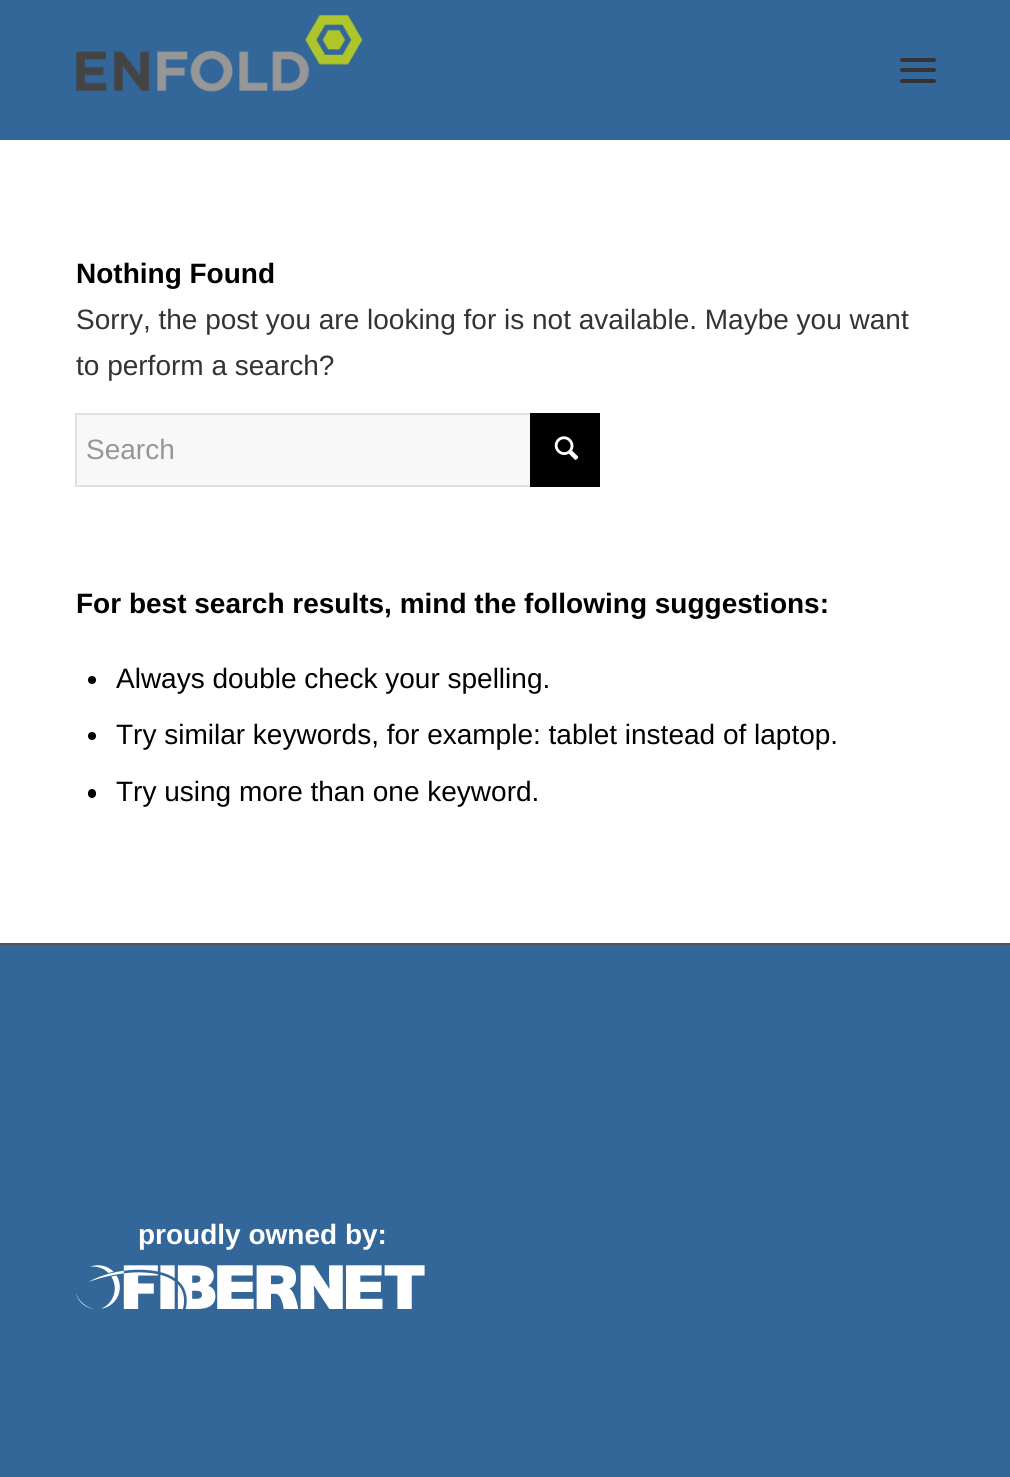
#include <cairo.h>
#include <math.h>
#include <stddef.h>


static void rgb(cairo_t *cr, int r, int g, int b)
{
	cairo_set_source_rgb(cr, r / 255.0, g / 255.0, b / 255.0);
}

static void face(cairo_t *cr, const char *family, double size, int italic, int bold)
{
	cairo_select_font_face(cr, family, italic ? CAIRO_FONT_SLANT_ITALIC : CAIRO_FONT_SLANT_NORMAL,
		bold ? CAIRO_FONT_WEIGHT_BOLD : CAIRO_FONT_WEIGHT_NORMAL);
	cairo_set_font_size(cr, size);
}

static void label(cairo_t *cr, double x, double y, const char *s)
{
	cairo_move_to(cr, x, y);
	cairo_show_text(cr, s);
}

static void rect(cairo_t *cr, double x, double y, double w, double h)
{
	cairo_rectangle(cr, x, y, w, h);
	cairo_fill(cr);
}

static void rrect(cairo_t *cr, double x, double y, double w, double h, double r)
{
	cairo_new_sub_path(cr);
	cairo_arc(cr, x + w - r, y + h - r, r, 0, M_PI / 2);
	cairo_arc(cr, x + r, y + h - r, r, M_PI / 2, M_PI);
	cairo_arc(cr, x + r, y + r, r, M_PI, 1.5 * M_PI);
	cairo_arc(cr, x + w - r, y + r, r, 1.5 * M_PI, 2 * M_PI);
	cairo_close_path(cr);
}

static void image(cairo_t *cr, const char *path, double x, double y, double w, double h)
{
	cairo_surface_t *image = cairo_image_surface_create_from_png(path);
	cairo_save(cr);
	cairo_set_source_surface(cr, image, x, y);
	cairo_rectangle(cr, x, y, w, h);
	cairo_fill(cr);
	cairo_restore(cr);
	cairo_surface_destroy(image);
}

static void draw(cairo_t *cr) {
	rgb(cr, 255, 255, 255);
	cairo_paint(cr);
	rgb(cr, 51, 102, 153);
	rect(cr, 0, 0, 1010, 140);
	image(cr, "image0.png", 76, 15, 287, 77);
	rgb(cr, 51, 51, 51);
	rrect(cr, 900, 68, 36, 4, 2);
	cairo_fill(cr);
	rrect(cr, 900, 58, 36, 4, 2);
	cairo_fill(cr);
	rrect(cr, 900, 79, 36, 4, 2);
	cairo_fill(cr);
	face(cr, "Liberation Sans", 28, 0, 1);
	rgb(cr, 0, 0, 0);
	label(cr, 76, 283, "Nothing Found");
	face(cr, "Liberation Sans", 28, 0, 0);
	rgb(cr, 51, 51, 51);
	label(cr, 76, 329, "Sorry, the post you are looking for is not available. Maybe you want");
	label(cr, 76, 375, "to perform a search?");
	rgb(cr, 248, 248, 248);
	rect(cr, 77, 415, 453, 70);
	cairo_rectangle(cr, 76, 414, 523, 72);
	rgb(cr, 225, 225, 225);
	cairo_stroke(cr);
	rgb(cr, 150, 150, 150);
	label(cr, 86, 459, "Search");
	rgb(cr, 0, 0, 0);
	rect(cr, 530, 413, 70, 74);
	image(cr, "image1.png", 554, 436, 25, 24);
	face(cr, "Liberation Sans", 28, 0, 1);
	label(cr, 76, 613, "For best search results, mind the following suggestions:");
	cairo_new_path(cr);
	cairo_arc(cr, 92, 680, 4, 0, 2 * M_PI);
	cairo_fill(cr);
	face(cr, "Liberation Sans", 28, 0, 0);
	label(cr, 116, 688, "Always double check your spelling.");
	cairo_new_path(cr);
	cairo_arc(cr, 92, 736, 4, 0, 2 * M_PI);
	cairo_fill(cr);
	label(cr, 116, 744, "Try similar keywords, for example: tablet instead of laptop.");
	rrect(cr, 88, 789, 8, 9, 4);
	cairo_fill(cr);
	label(cr, 116, 801, "Try using more than one keyword.");
	rgb(cr, 51, 102, 153);
	rect(cr, 0, 945, 1010, 532);
	rgb(cr, 85, 85, 85);
	rect(cr, 0, 943, 1010, 2);
	face(cr, "Liberation Sans", 28, 0, 1);
	rgb(cr, 255, 255, 255);
	label(cr, 138, 1244, "proudly owned by:");
	image(cr, "image2.png", 75, 1265, 350, 44);
}

int main(void) {
	cairo_surface_t *surface = cairo_image_surface_create(CAIRO_FORMAT_RGB24, 1010, 1477);
	cairo_t *cr = cairo_create(surface);
	cairo_font_options_t *options = cairo_font_options_create();
	cairo_font_options_set_hint_metrics(options, CAIRO_HINT_METRICS_OFF);
	cairo_font_options_set_hint_style(options, CAIRO_HINT_STYLE_NONE);
	cairo_set_font_options(cr, options);
	cairo_set_miter_limit(cr, 4);
	draw(cr);
	cairo_surface_write_to_png(surface, "render.png");
	cairo_font_options_destroy(options);
	cairo_destroy(cr);
	cairo_surface_destroy(surface);
	return 0;
}
